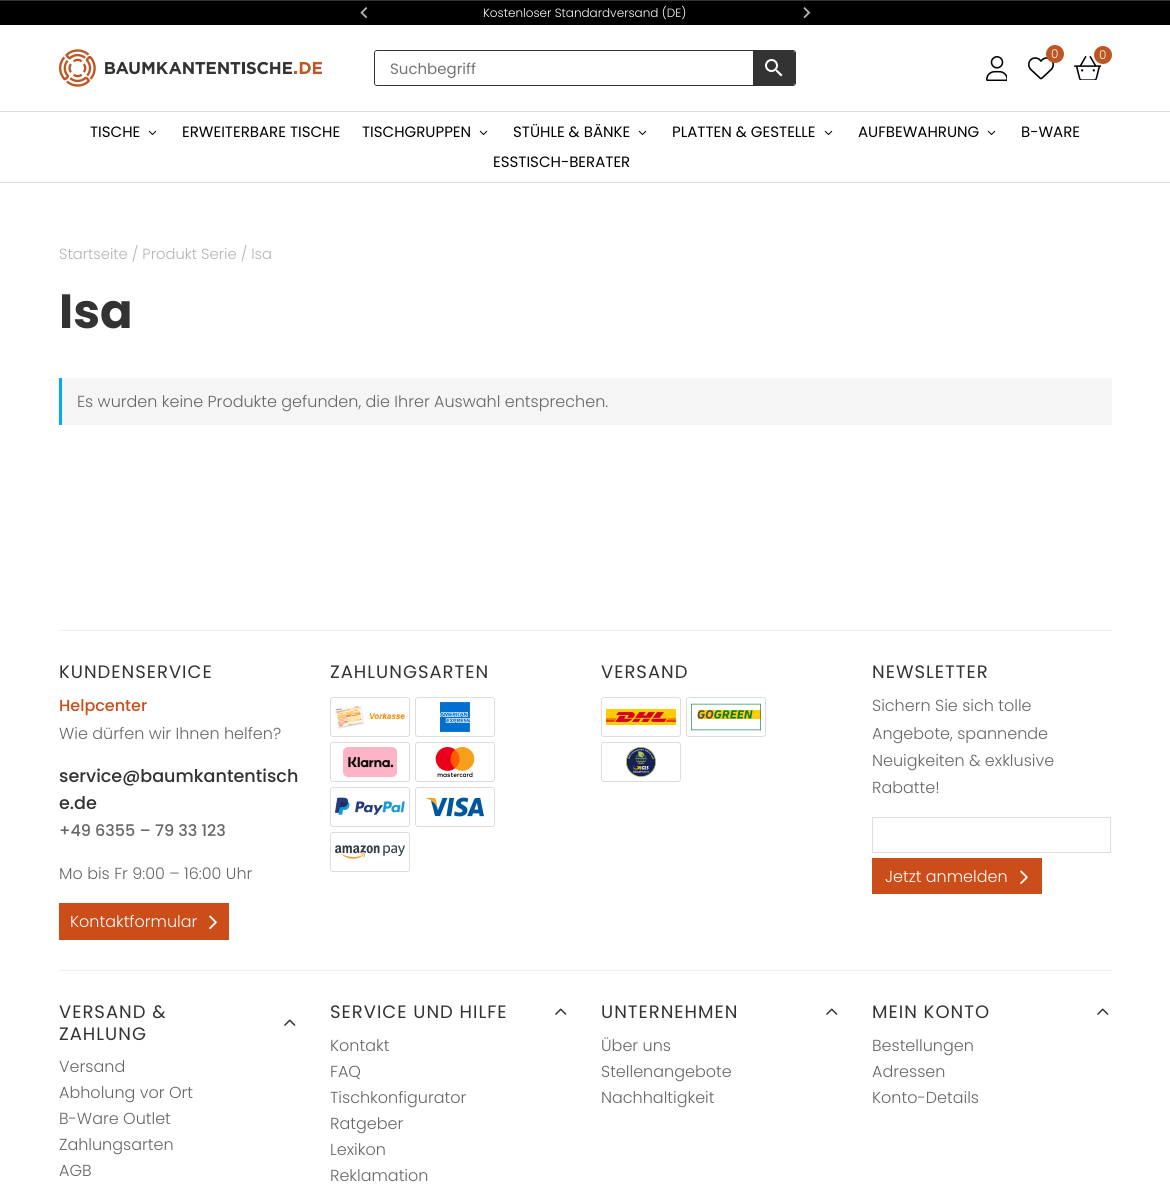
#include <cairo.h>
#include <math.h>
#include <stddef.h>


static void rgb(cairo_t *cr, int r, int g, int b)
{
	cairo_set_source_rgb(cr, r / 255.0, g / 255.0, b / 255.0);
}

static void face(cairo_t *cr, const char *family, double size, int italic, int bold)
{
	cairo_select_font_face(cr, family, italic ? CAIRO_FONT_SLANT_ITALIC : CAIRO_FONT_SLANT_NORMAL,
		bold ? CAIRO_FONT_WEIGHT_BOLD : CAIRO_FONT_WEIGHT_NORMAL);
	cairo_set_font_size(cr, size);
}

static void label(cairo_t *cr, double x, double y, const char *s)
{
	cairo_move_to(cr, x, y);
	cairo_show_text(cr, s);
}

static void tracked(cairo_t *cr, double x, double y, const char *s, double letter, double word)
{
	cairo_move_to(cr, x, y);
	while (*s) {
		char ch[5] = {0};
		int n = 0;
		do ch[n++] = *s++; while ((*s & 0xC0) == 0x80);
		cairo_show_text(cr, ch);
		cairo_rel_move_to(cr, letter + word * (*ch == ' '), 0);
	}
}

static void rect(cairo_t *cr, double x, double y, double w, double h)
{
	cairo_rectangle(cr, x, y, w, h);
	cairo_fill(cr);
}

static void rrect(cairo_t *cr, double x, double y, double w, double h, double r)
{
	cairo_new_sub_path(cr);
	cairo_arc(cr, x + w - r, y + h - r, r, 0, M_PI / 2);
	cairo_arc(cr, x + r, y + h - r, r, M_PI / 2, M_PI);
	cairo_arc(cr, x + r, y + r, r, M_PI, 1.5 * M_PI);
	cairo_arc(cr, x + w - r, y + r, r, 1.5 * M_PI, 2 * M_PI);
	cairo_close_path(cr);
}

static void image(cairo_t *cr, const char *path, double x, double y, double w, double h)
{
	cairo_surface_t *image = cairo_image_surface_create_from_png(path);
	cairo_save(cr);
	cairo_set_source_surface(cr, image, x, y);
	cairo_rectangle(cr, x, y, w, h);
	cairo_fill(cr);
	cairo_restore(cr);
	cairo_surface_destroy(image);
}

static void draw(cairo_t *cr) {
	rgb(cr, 255, 255, 255);
	cairo_paint(cr);
	rgb(cr, 51, 51, 51);
	rect(cr, 0, 0, 1170, 1);
	rgb(cr, 0, 0, 0);
	rect(cr, 0, 1, 1170, 24);
	face(cr, "Poppins Light", 12, 0, 0);
	rgb(cr, 254, 253, 253);
	label(cr, 483, 17, "Kostenloser Standardversand (DE)");
	image(cr, "image0.png", 360, 7, 8, 12);
	image(cr, "image1.png", 803, 7, 8, 12);
	image(cr, "image2.png", 59, 49, 263, 38);
	image(cr, "image3.png", 1028, 57, 26, 23);
	rgb(cr, 190, 86, 35);
	cairo_arc(cr, 1055, 54, 9, 0, 2 * M_PI);
	cairo_fill(cr);
	rgb(cr, 254, 253, 253);
	label(cr, 1051, 58, "0");
	image(cr, "image4.png", 1074, 56, 27, 24);
	rgb(cr, 190, 86, 35);
	cairo_arc(cr, 1103, 55, 9, 0, 2 * M_PI);
	cairo_fill(cr);
	rgb(cr, 254, 253, 253);
	label(cr, 1099, 59, "0");
	image(cr, "image5.png", 986, 56, 21, 25);
	rrect(cr, 374.5, 50.5, 421, 35, 2.5);
	rgb(cr, 51, 51, 51);
	cairo_set_line_width(cr, 1);
	cairo_stroke(cr);
	rgb(cr, 255, 255, 255);
	rrect(cr, 375, 51, 420, 34, 2);
	cairo_fill(cr);
	face(cr, "Poppins", 15, 0, 0);
	rgb(cr, 117, 117, 117);
	label(cr, 390, 74, "Suchbegriff");
	rgb(cr, 51, 51, 51);
	cairo_new_path(cr);
	cairo_move_to(cr, 753, 51);
	cairo_line_to(cr, 793, 51);
	cairo_curve_to(cr, 794, 51, 795, 52, 795, 53);
	cairo_line_to(cr, 795, 83);
	cairo_curve_to(cr, 795, 84, 794, 85, 793, 85);
	cairo_line_to(cr, 753, 85);
	cairo_close_path(cr);
	cairo_fill(cr);
	image(cr, "image6.png", 765, 59, 18, 18);
	rgb(cr, 221, 221, 221);
	rect(cr, 0, 111, 1170, 1);
	rect(cr, 0, 182, 1170, 1);
	rgb(cr, 0, 0, 0);
	label(cr, 90, 137, "TISCHE");
	image(cr, "image7.png", 148, 130, 9, 5);
	label(cr, 182, 137, "ERWEITERBARE TISCHE");
	label(cr, 362, 137, "TISCHGRUPPEN");
	image(cr, "image7.png", 479, 130, 9, 5);
	label(cr, 513, 137, "STÜHLE & BÄNKE");
	image(cr, "image7.png", 638, 130, 9, 5);
	label(cr, 672, 137, "PLATTEN & GESTELLE");
	image(cr, "image7.png", 824, 130, 9, 5);
	label(cr, 858, 137, "AUFBEWAHRUNG");
	image(cr, "image7.png", 987, 130, 9, 5);
	label(cr, 1021, 137, "B-WARE");
	label(cr, 493, 167, "ESSTISCH-BERATER");
	face(cr, "Poppins Light", 14.75, 0, 0);
	rgb(cr, 179, 179, 179);
	label(cr, 59, 259, "Startseite / Produkt Serie / Isa");
	face(cr, "Poppins", 48, 0, 1);
	rgb(cr, 51, 51, 51);
	label(cr, 59, 328, "Isa");
	rgb(cr, 245, 245, 245);
	rect(cr, 62, 378, 1050, 47);
	rgb(cr, 3, 169, 244);
	rect(cr, 59, 378, 3, 47);
	face(cr, "Poppins Light", 16, 0, 0);
	rgb(cr, 102, 102, 102);
	label(cr, 77, 407, "Es wurden keine Produkte gefunden, die Ihrer Auswahl entsprechen.");
	rgb(cr, 238, 238, 238);
	rect(cr, 59, 630, 1053, 1);
	rect(cr, 59, 970, 1053, 1);
	face(cr, "Poppins", 18, 0, 0);
	rgb(cr, 51, 51, 51);
	tracked(cr, 59, 678, "KUNDENSERVICE", 1, 0);
	face(cr, "Poppins Medium", 16, 0, 0);
	rgb(cr, 202, 77, 26);
	label(cr, 59, 711, "Helpcenter");
	face(cr, "Poppins Light", 16, 0, 0);
	rgb(cr, 102, 102, 102);
	label(cr, 59, 739, "Wie dürfen wir Ihnen helfen?");
	face(cr, "Poppins Medium", 17.6, 0, 0);
	rgb(cr, 51, 51, 51);
	label(cr, 59, 782, "service@baumkantentisch");
	label(cr, 59, 809, "e.de");
	face(cr, "Poppins Medium", 16, 0, 0);
	rgb(cr, 102, 102, 102);
	label(cr, 59, 836, "+49 6355 – 79 33 123");
	face(cr, "Poppins Light", 16, 0, 0);
	label(cr, 59, 879, "Mo bis Fr 9:00 – 16:00 Uhr");
	rgb(cr, 202, 77, 26);
	rect(cr, 59, 903, 170, 37);
	rgb(cr, 254, 253, 253);
	label(cr, 70, 927, "Kontaktformular");
	image(cr, "image8.png", 209, 915, 8, 14);
	face(cr, "Poppins", 18, 0, 0);
	rgb(cr, 51, 51, 51);
	tracked(cr, 330, 678, "ZAHLUNGSARTEN", 1, 0);
	rrect(cr, 330.5, 697.5, 79, 39, 2.5);
	rgb(cr, 221, 221, 221);
	cairo_stroke(cr);
	image(cr, "image9.png", 335, 705, 70, 24);
	rrect(cr, 415.5, 697.5, 79, 39, 2.5);
	cairo_stroke(cr);
	image(cr, "image10.png", 440, 702, 30, 30);
	rrect(cr, 330.5, 742.5, 79, 39, 2.5);
	cairo_stroke(cr);
	image(cr, "image11.png", 343, 747, 54, 30);
	rrect(cr, 415.5, 742.5, 79, 39, 2.5);
	cairo_stroke(cr);
	image(cr, "image12.png", 435, 747, 40, 30);
	rrect(cr, 330.5, 787.5, 79, 39, 2.5);
	cairo_stroke(cr);
	image(cr, "image13.png", 335, 797, 70, 18);
	rrect(cr, 415.5, 787.5, 79, 39, 2.5);
	cairo_stroke(cr);
	image(cr, "image14.png", 426, 797, 58, 20);
	rrect(cr, 330.5, 832.5, 79, 39, 2.5);
	cairo_stroke(cr);
	image(cr, "image15.png", 335, 845, 70, 14);
	rgb(cr, 51, 51, 51);
	tracked(cr, 601, 678, "VERSAND", 1, 0);
	rrect(cr, 601.5, 697.5, 79, 39, 2.5);
	rgb(cr, 221, 221, 221);
	cairo_stroke(cr);
	image(cr, "image16.png", 606, 709, 70, 16);
	rrect(cr, 686.5, 697.5, 79, 39, 2.5);
	cairo_stroke(cr);
	image(cr, "image17.png", 691, 703, 70, 28);
	rrect(cr, 601.5, 742.5, 79, 39, 2.5);
	cairo_stroke(cr);
	image(cr, "image18.png", 626, 747, 30, 30);
	rgb(cr, 51, 51, 51);
	tracked(cr, 872, 678, "NEWSLETTER", 1, 0);
	face(cr, "Poppins Light", 16, 0, 0);
	rgb(cr, 102, 102, 102);
	label(cr, 872, 711, "Sichern Sie sich tolle");
	label(cr, 872, 739, "Angebote, spannende");
	label(cr, 872, 766, "Neuigkeiten & exklusive");
	label(cr, 872, 793, "Rabatte!");
	cairo_rectangle(cr, 872.5, 817.5, 238, 35);
	rgb(cr, 222, 222, 222);
	cairo_stroke(cr);
	rgb(cr, 202, 77, 26);
	rect(cr, 872, 858, 170, 36);
	rgb(cr, 254, 253, 253);
	label(cr, 885, 882, "Jetzt anmelden");
	image(cr, "image8.png", 1020, 870, 8, 14);
	face(cr, "Poppins", 18, 0, 0);
	rgb(cr, 51, 51, 51);
	tracked(cr, 59, 1018, "VERSAND &", 1, 0);
	image(cr, "image19.png", 284, 1019, 12, 7);
	tracked(cr, 59, 1040, "ZAHLUNG", 1, 0);
	face(cr, "Poppins Light", 16, 0, 0);
	rgb(cr, 102, 102, 102);
	label(cr, 59, 1072, "Versand");
	label(cr, 59, 1098, "Abholung vor Ort");
	label(cr, 59, 1124, "B-Ware Outlet");
	label(cr, 59, 1150, "Zahlungsarten");
	label(cr, 59, 1176, "AGB");
	face(cr, "Poppins", 18, 0, 0);
	rgb(cr, 51, 51, 51);
	tracked(cr, 330, 1018, "SERVICE UND HILFE", 1, 0);
	image(cr, "image19.png", 555, 1008, 12, 7);
	face(cr, "Poppins Light", 16, 0, 0);
	rgb(cr, 102, 102, 102);
	label(cr, 330, 1051, "Kontakt");
	label(cr, 330, 1077, "FAQ");
	label(cr, 330, 1103, "Tischkonfigurator");
	label(cr, 330, 1129, "Ratgeber");
	label(cr, 330, 1155, "Lexikon");
	label(cr, 330, 1181, "Reklamation");
	face(cr, "Poppins", 18, 0, 0);
	rgb(cr, 51, 51, 51);
	tracked(cr, 601, 1018, "UNTERNEHMEN", 1, 0);
	image(cr, "image19.png", 826, 1008, 12, 7);
	face(cr, "Poppins Light", 16, 0, 0);
	rgb(cr, 102, 102, 102);
	label(cr, 601, 1051, "Über uns");
	label(cr, 601, 1077, "Stellenangebote");
	label(cr, 601, 1103, "Nachhaltigkeit");
	face(cr, "Poppins", 18, 0, 0);
	rgb(cr, 51, 51, 51);
	tracked(cr, 872, 1018, "MEIN KONTO", 1, 0);
	image(cr, "image19.png", 1097, 1008, 12, 7);
	face(cr, "Poppins Light", 16, 0, 0);
	rgb(cr, 102, 102, 102);
	label(cr, 872, 1051, "Bestellungen");
	label(cr, 872, 1077, "Adressen");
	label(cr, 872, 1103, "Konto-Details");
}

int main(void) {
	cairo_surface_t *surface = cairo_image_surface_create(CAIRO_FORMAT_RGB24, 1170, 1192);
	cairo_t *cr = cairo_create(surface);
	cairo_font_options_t *options = cairo_font_options_create();
	cairo_font_options_set_hint_metrics(options, CAIRO_HINT_METRICS_OFF);
	cairo_font_options_set_hint_style(options, CAIRO_HINT_STYLE_NONE);
	cairo_set_font_options(cr, options);
	cairo_set_miter_limit(cr, 4);
	draw(cr);
	cairo_surface_write_to_png(surface, "render.png");
	cairo_font_options_destroy(options);
	cairo_destroy(cr);
	cairo_surface_destroy(surface);
	return 0;
}
